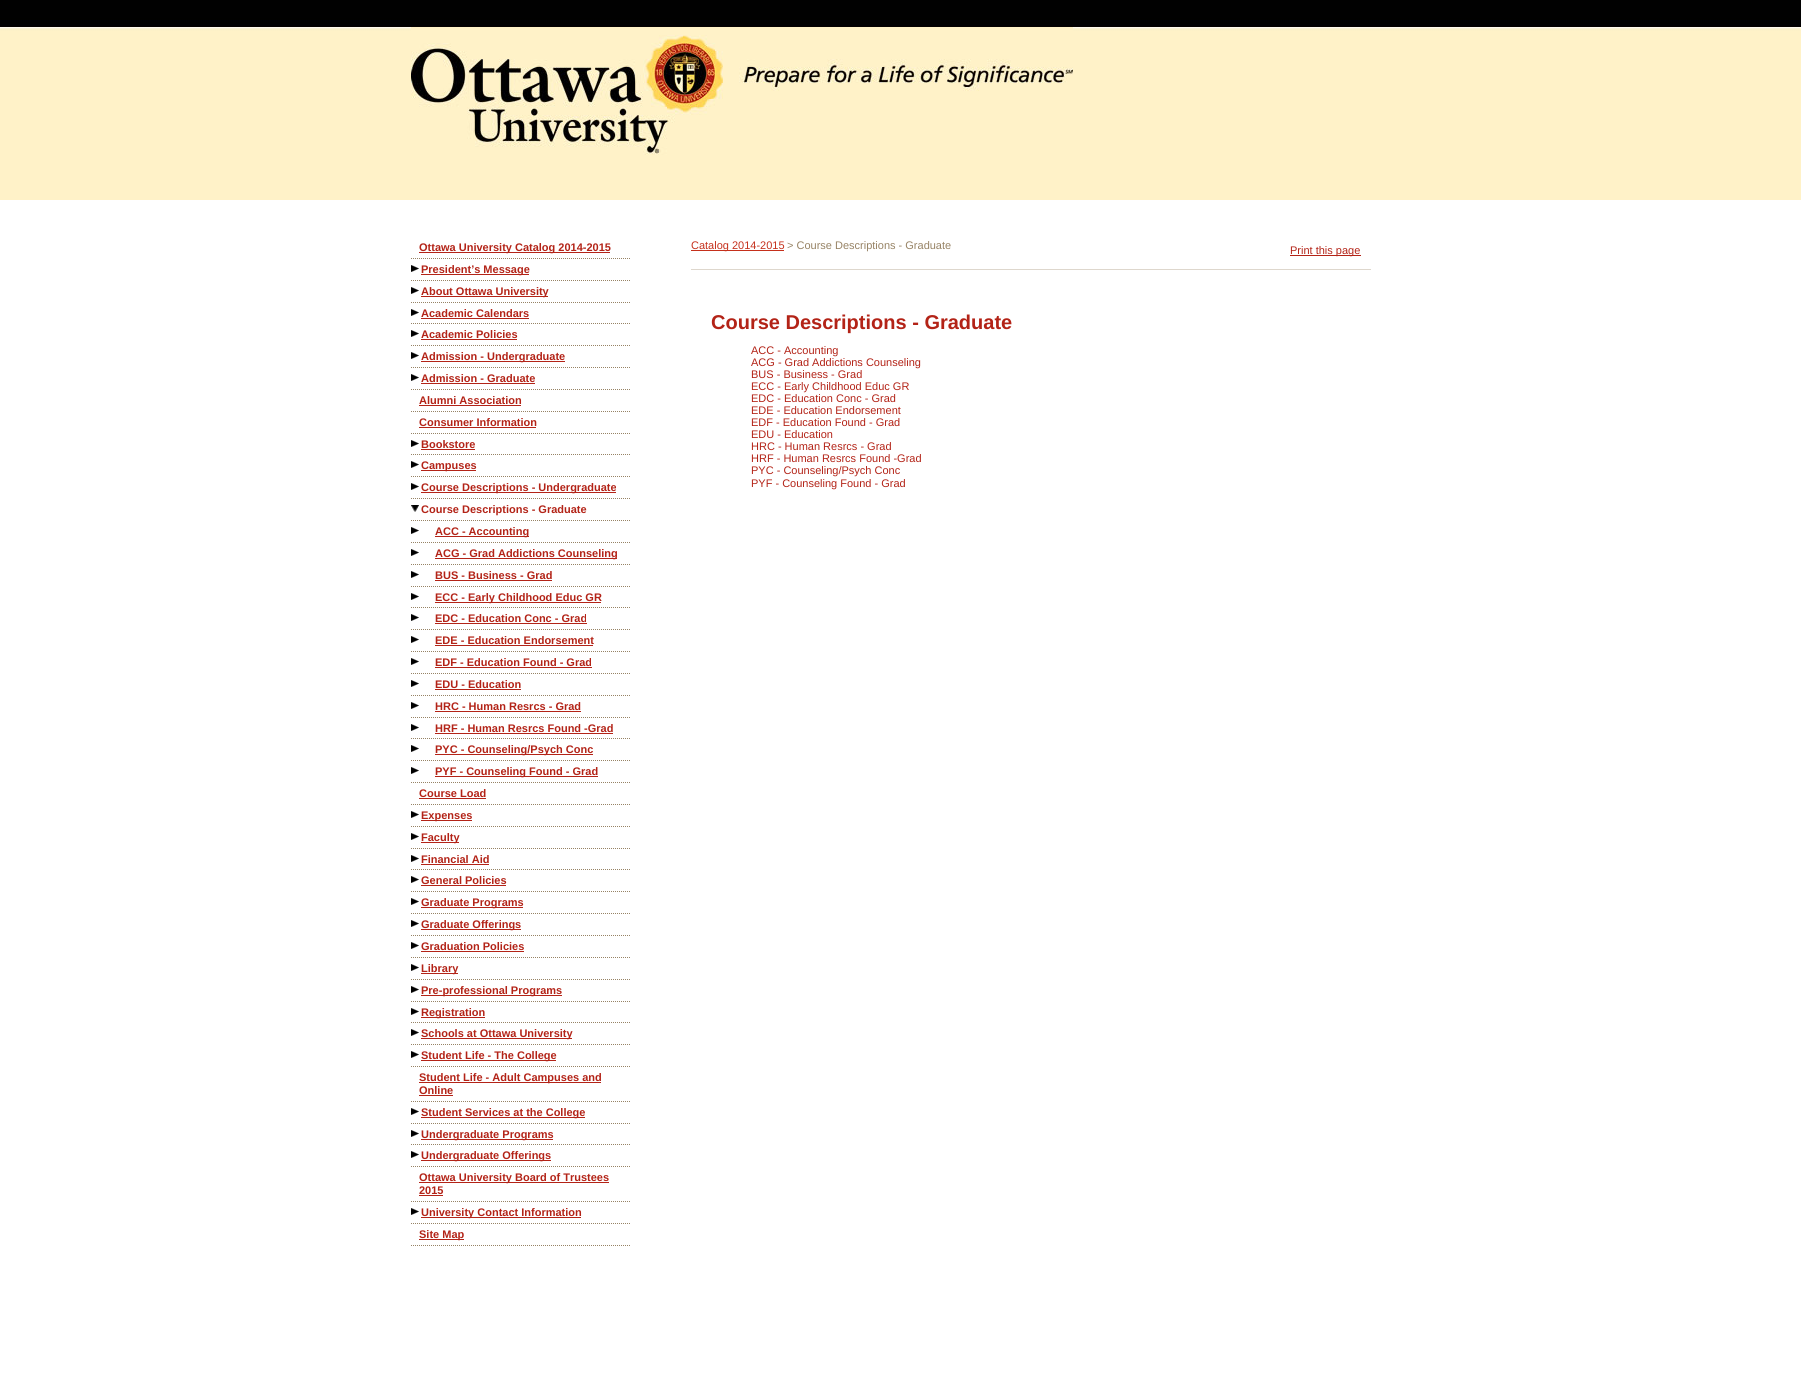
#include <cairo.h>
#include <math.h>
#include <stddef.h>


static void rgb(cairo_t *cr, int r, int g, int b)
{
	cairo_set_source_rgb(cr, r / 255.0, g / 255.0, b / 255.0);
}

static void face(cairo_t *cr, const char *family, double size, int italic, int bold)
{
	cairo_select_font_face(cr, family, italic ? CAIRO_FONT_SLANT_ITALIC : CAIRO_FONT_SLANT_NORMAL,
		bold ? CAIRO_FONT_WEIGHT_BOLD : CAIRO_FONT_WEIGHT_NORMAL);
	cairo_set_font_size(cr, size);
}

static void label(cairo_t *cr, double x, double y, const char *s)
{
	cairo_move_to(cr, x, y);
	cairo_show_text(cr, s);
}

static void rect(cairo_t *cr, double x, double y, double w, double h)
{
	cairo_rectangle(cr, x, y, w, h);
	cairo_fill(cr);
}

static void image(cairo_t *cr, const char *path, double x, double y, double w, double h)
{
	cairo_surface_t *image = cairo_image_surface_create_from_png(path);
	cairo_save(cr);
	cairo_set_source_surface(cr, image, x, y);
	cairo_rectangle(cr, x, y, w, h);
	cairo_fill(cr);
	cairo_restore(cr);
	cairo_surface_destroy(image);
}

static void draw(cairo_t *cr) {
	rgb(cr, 255, 255, 255);
	cairo_paint(cr);
	image(cr, "image0.png", 0, 0, 1801, 200);
	image(cr, "image1.png", 411, 27, 662, 128);
	cairo_new_path(cr);
	cairo_move_to(cr, 411, 258.5);
	cairo_line_to(cr, 631, 258.5);
	rgb(cr, 151, 131, 101);
	cairo_set_line_width(cr, 1);
	cairo_set_dash(cr, (double[]){1, 1}, 2, 0);
	cairo_stroke(cr);
	rgb(cr, 179, 35, 23);
	rect(cr, 419, 252, 191, 1);
	face(cr, "Liberation Sans", 11, 0, 1);
	label(cr, 419, 251, "Ottawa University Catalog 2014-2015");
	image(cr, "image2.png", 411, 265, 8, 7);
	cairo_new_path(cr);
	cairo_move_to(cr, 411, 280.5);
	cairo_line_to(cr, 631, 280.5);
	rgb(cr, 151, 131, 101);
	cairo_stroke(cr);
	rgb(cr, 179, 35, 23);
	rect(cr, 421, 274, 108, 1);
	label(cr, 421, 273, "President’s Message");
	image(cr, "image2.png", 411, 287, 8, 7);
	cairo_new_path(cr);
	cairo_move_to(cr, 411, 302.5);
	cairo_line_to(cr, 631, 302.5);
	rgb(cr, 151, 131, 101);
	cairo_stroke(cr);
	rgb(cr, 179, 35, 23);
	rect(cr, 421, 296, 127, 1);
	label(cr, 421, 295, "About Ottawa University");
	image(cr, "image2.png", 411, 309, 8, 7);
	cairo_new_path(cr);
	cairo_move_to(cr, 411, 323.5);
	cairo_line_to(cr, 631, 323.5);
	rgb(cr, 151, 131, 101);
	cairo_stroke(cr);
	rgb(cr, 179, 35, 23);
	label(cr, 421, 317, "Academic Calendars");
	rect(cr, 421, 318, 108, 1);
	image(cr, "image2.png", 411, 330, 8, 7);
	cairo_new_path(cr);
	cairo_move_to(cr, 411, 345.5);
	cairo_line_to(cr, 631, 345.5);
	rgb(cr, 151, 131, 101);
	cairo_stroke(cr);
	rgb(cr, 179, 35, 23);
	label(cr, 421, 338, "Academic Policies");
	rect(cr, 421, 339, 96, 1);
	image(cr, "image2.png", 411, 352, 8, 7);
	cairo_new_path(cr);
	cairo_move_to(cr, 411, 367.5);
	cairo_line_to(cr, 631, 367.5);
	rgb(cr, 151, 131, 101);
	cairo_stroke(cr);
	rgb(cr, 179, 35, 23);
	rect(cr, 421, 361, 144, 1);
	label(cr, 421, 360, "Admission - Undergraduate");
	image(cr, "image2.png", 411, 374, 8, 7);
	cairo_new_path(cr);
	cairo_move_to(cr, 411, 389.5);
	cairo_line_to(cr, 631, 389.5);
	rgb(cr, 151, 131, 101);
	cairo_stroke(cr);
	rgb(cr, 179, 35, 23);
	label(cr, 421, 382, "Admission - Graduate");
	rect(cr, 421, 383, 114, 1);
	cairo_new_path(cr);
	cairo_move_to(cr, 411, 411.5);
	cairo_line_to(cr, 631, 411.5);
	rgb(cr, 151, 131, 101);
	cairo_stroke(cr);
	rgb(cr, 179, 35, 23);
	label(cr, 419, 404, "Alumni Association");
	rect(cr, 419, 405, 102, 1);
	cairo_new_path(cr);
	cairo_move_to(cr, 411, 433.5);
	cairo_line_to(cr, 631, 433.5);
	rgb(cr, 151, 131, 101);
	cairo_stroke(cr);
	rgb(cr, 179, 35, 23);
	label(cr, 419, 426, "Consumer Information");
	rect(cr, 419, 427, 117, 1);
	image(cr, "image2.png", 411, 440, 8, 7);
	cairo_new_path(cr);
	cairo_move_to(cr, 411, 454.5);
	cairo_line_to(cr, 631, 454.5);
	rgb(cr, 151, 131, 101);
	cairo_stroke(cr);
	rgb(cr, 179, 35, 23);
	label(cr, 421, 448, "Bookstore");
	rect(cr, 421, 449, 54, 1);
	image(cr, "image2.png", 411, 461, 8, 7);
	cairo_new_path(cr);
	cairo_move_to(cr, 411, 476.5);
	cairo_line_to(cr, 631, 476.5);
	rgb(cr, 151, 131, 101);
	cairo_stroke(cr);
	rgb(cr, 179, 35, 23);
	rect(cr, 421, 470, 55, 1);
	label(cr, 421, 469, "Campuses");
	image(cr, "image2.png", 411, 483, 8, 7);
	cairo_new_path(cr);
	cairo_move_to(cr, 411, 498.5);
	cairo_line_to(cr, 631, 498.5);
	rgb(cr, 151, 131, 101);
	cairo_stroke(cr);
	rgb(cr, 179, 35, 23);
	rect(cr, 421, 492, 195, 1);
	label(cr, 421, 491, "Course Descriptions - Undergraduate");
	image(cr, "image3.png", 411, 505, 8, 7);
	cairo_new_path(cr);
	cairo_move_to(cr, 411, 520.5);
	cairo_line_to(cr, 631, 520.5);
	rgb(cr, 151, 131, 101);
	cairo_stroke(cr);
	rgb(cr, 179, 35, 23);
	label(cr, 421, 513, "Course Descriptions - Graduate");
	image(cr, "image2.png", 411, 527, 8, 7);
	cairo_new_path(cr);
	cairo_move_to(cr, 411, 542.5);
	cairo_line_to(cr, 631, 542.5);
	rgb(cr, 151, 131, 101);
	cairo_stroke(cr);
	rgb(cr, 179, 35, 23);
	rect(cr, 435, 536, 94, 1);
	label(cr, 435, 535, "ACC - Accounting");
	image(cr, "image2.png", 411, 549, 8, 7);
	cairo_new_path(cr);
	cairo_move_to(cr, 411, 564.5);
	cairo_line_to(cr, 631, 564.5);
	rgb(cr, 151, 131, 101);
	cairo_stroke(cr);
	rgb(cr, 179, 35, 23);
	rect(cr, 435, 558, 182, 1);
	label(cr, 435, 557, "ACG - Grad Addictions Counseling");
	image(cr, "image2.png", 411, 571, 8, 7);
	cairo_new_path(cr);
	cairo_move_to(cr, 411, 586.5);
	cairo_line_to(cr, 631, 586.5);
	rgb(cr, 151, 131, 101);
	cairo_stroke(cr);
	rgb(cr, 179, 35, 23);
	label(cr, 435, 579, "BUS - Business - Grad");
	rect(cr, 435, 580, 117, 1);
	image(cr, "image2.png", 411, 593, 8, 7);
	cairo_new_path(cr);
	cairo_move_to(cr, 411, 607.5);
	cairo_line_to(cr, 631, 607.5);
	rgb(cr, 151, 131, 101);
	cairo_stroke(cr);
	rgb(cr, 179, 35, 23);
	rect(cr, 435, 602, 166, 1);
	label(cr, 435, 601, "ECC - Early Childhood Educ GR");
	image(cr, "image2.png", 411, 614, 8, 7);
	cairo_new_path(cr);
	cairo_move_to(cr, 411, 629.5);
	cairo_line_to(cr, 631, 629.5);
	rgb(cr, 151, 131, 101);
	cairo_stroke(cr);
	rgb(cr, 179, 35, 23);
	label(cr, 435, 622, "EDC - Education Conc - Grad");
	rect(cr, 435, 623, 152, 1);
	image(cr, "image2.png", 411, 636, 8, 7);
	cairo_new_path(cr);
	cairo_move_to(cr, 411, 651.5);
	cairo_line_to(cr, 631, 651.5);
	rgb(cr, 151, 131, 101);
	cairo_stroke(cr);
	rgb(cr, 179, 35, 23);
	label(cr, 435, 644, "EDE - Education Endorsement");
	rect(cr, 435, 645, 158, 1);
	image(cr, "image2.png", 411, 658, 8, 7);
	cairo_new_path(cr);
	cairo_move_to(cr, 411, 673.5);
	cairo_line_to(cr, 631, 673.5);
	rgb(cr, 151, 131, 101);
	cairo_stroke(cr);
	rgb(cr, 179, 35, 23);
	label(cr, 435, 666, "EDF - Education Found - Grad");
	rect(cr, 435, 667, 157, 1);
	image(cr, "image2.png", 411, 680, 8, 7);
	cairo_new_path(cr);
	cairo_move_to(cr, 411, 695.5);
	cairo_line_to(cr, 631, 695.5);
	rgb(cr, 151, 131, 101);
	cairo_stroke(cr);
	rgb(cr, 179, 35, 23);
	label(cr, 435, 688, "EDU - Education");
	rect(cr, 435, 689, 86, 1);
	image(cr, "image2.png", 411, 702, 8, 7);
	cairo_new_path(cr);
	cairo_move_to(cr, 411, 717.5);
	cairo_line_to(cr, 631, 717.5);
	rgb(cr, 151, 131, 101);
	cairo_stroke(cr);
	rgb(cr, 179, 35, 23);
	label(cr, 435, 710, "HRC - Human Resrcs - Grad");
	rect(cr, 435, 711, 146, 1);
	image(cr, "image2.png", 411, 724, 8, 7);
	cairo_new_path(cr);
	cairo_move_to(cr, 411, 738.5);
	cairo_line_to(cr, 631, 738.5);
	rgb(cr, 151, 131, 101);
	cairo_stroke(cr);
	rgb(cr, 179, 35, 23);
	label(cr, 435, 732, "HRF - Human Resrcs Found -Grad");
	rect(cr, 435, 733, 178, 1);
	image(cr, "image2.png", 411, 745, 8, 7);
	cairo_new_path(cr);
	cairo_move_to(cr, 411, 760.5);
	cairo_line_to(cr, 631, 760.5);
	rgb(cr, 151, 131, 101);
	cairo_stroke(cr);
	rgb(cr, 179, 35, 23);
	rect(cr, 435, 754, 158, 1);
	label(cr, 435, 753, "PYC - Counseling/Psych Conc");
	image(cr, "image2.png", 411, 767, 8, 7);
	cairo_new_path(cr);
	cairo_move_to(cr, 411, 782.5);
	cairo_line_to(cr, 631, 782.5);
	rgb(cr, 151, 131, 101);
	cairo_stroke(cr);
	rgb(cr, 179, 35, 23);
	rect(cr, 435, 776, 163, 1);
	label(cr, 435, 775, "PYF - Counseling Found - Grad");
	cairo_new_path(cr);
	cairo_move_to(cr, 411, 804.5);
	cairo_line_to(cr, 631, 804.5);
	rgb(cr, 151, 131, 101);
	cairo_stroke(cr);
	rgb(cr, 179, 35, 23);
	label(cr, 419, 797, "Course Load");
	rect(cr, 419, 798, 67, 1);
	image(cr, "image2.png", 411, 811, 8, 7);
	cairo_new_path(cr);
	cairo_move_to(cr, 411, 826.5);
	cairo_line_to(cr, 631, 826.5);
	rgb(cr, 151, 131, 101);
	cairo_stroke(cr);
	rgb(cr, 179, 35, 23);
	rect(cr, 421, 820, 51, 1);
	label(cr, 421, 819, "Expenses");
	image(cr, "image2.png", 411, 833, 8, 7);
	cairo_new_path(cr);
	cairo_move_to(cr, 411, 848.5);
	cairo_line_to(cr, 631, 848.5);
	rgb(cr, 151, 131, 101);
	cairo_stroke(cr);
	rgb(cr, 179, 35, 23);
	rect(cr, 421, 842, 38, 1);
	label(cr, 421, 841, "Faculty");
	image(cr, "image2.png", 411, 855, 8, 7);
	cairo_new_path(cr);
	cairo_move_to(cr, 411, 869.5);
	cairo_line_to(cr, 631, 869.5);
	rgb(cr, 151, 131, 101);
	cairo_stroke(cr);
	rgb(cr, 179, 35, 23);
	label(cr, 421, 863, "Financial Aid");
	rect(cr, 421, 864, 68, 1);
	image(cr, "image2.png", 411, 876, 8, 7);
	cairo_new_path(cr);
	cairo_move_to(cr, 411, 891.5);
	cairo_line_to(cr, 631, 891.5);
	rgb(cr, 151, 131, 101);
	cairo_stroke(cr);
	rgb(cr, 179, 35, 23);
	label(cr, 421, 884, "General Policies");
	rect(cr, 421, 885, 85, 1);
	image(cr, "image2.png", 411, 898, 8, 7);
	cairo_new_path(cr);
	cairo_move_to(cr, 411, 913.5);
	cairo_line_to(cr, 631, 913.5);
	rgb(cr, 151, 131, 101);
	cairo_stroke(cr);
	rgb(cr, 179, 35, 23);
	rect(cr, 421, 907, 102, 1);
	label(cr, 421, 906, "Graduate Programs");
	image(cr, "image2.png", 411, 920, 8, 7);
	cairo_new_path(cr);
	cairo_move_to(cr, 411, 935.5);
	cairo_line_to(cr, 631, 935.5);
	rgb(cr, 151, 131, 101);
	cairo_stroke(cr);
	rgb(cr, 179, 35, 23);
	rect(cr, 421, 929, 100, 1);
	label(cr, 421, 928, "Graduate Offerings");
	image(cr, "image2.png", 411, 942, 8, 7);
	cairo_new_path(cr);
	cairo_move_to(cr, 411, 957.5);
	cairo_line_to(cr, 631, 957.5);
	rgb(cr, 151, 131, 101);
	cairo_stroke(cr);
	rgb(cr, 179, 35, 23);
	label(cr, 421, 950, "Graduation Policies");
	rect(cr, 421, 951, 103, 1);
	image(cr, "image2.png", 411, 964, 8, 7);
	cairo_new_path(cr);
	cairo_move_to(cr, 411, 979.5);
	cairo_line_to(cr, 631, 979.5);
	rgb(cr, 151, 131, 101);
	cairo_stroke(cr);
	rgb(cr, 179, 35, 23);
	rect(cr, 421, 973, 37, 1);
	label(cr, 421, 972, "Library");
	image(cr, "image2.png", 411, 986, 8, 7);
	cairo_new_path(cr);
	cairo_move_to(cr, 411, 1001.5);
	cairo_line_to(cr, 631, 1001.5);
	rgb(cr, 151, 131, 101);
	cairo_stroke(cr);
	rgb(cr, 179, 35, 23);
	rect(cr, 421, 995, 141, 1);
	label(cr, 421, 994, "Pre-professional Programs");
	image(cr, "image2.png", 411, 1008, 8, 7);
	cairo_new_path(cr);
	cairo_move_to(cr, 411, 1022.5);
	cairo_line_to(cr, 631, 1022.5);
	rgb(cr, 151, 131, 101);
	cairo_stroke(cr);
	rgb(cr, 179, 35, 23);
	rect(cr, 421, 1017, 64, 1);
	label(cr, 421, 1016, "Registration");
	image(cr, "image2.png", 411, 1029, 8, 7);
	cairo_new_path(cr);
	cairo_move_to(cr, 411, 1044.5);
	cairo_line_to(cr, 631, 1044.5);
	rgb(cr, 151, 131, 101);
	cairo_stroke(cr);
	rgb(cr, 179, 35, 23);
	rect(cr, 421, 1038, 151, 1);
	label(cr, 421, 1037, "Schools at Ottawa University");
	image(cr, "image2.png", 411, 1051, 8, 7);
	cairo_new_path(cr);
	cairo_move_to(cr, 411, 1066.5);
	cairo_line_to(cr, 631, 1066.5);
	rgb(cr, 151, 131, 101);
	cairo_stroke(cr);
	rgb(cr, 179, 35, 23);
	rect(cr, 421, 1060, 135, 1);
	label(cr, 421, 1059, "Student Life - The College");
	cairo_new_path(cr);
	cairo_move_to(cr, 411, 1101.5);
	cairo_line_to(cr, 631, 1101.5);
	rgb(cr, 151, 131, 101);
	cairo_stroke(cr);
	rgb(cr, 179, 35, 23);
	rect(cr, 419, 1082, 182, 1);
	label(cr, 419, 1081, "Student Life - Adult Campuses and");
	label(cr, 419, 1094, "Online");
	rect(cr, 419, 1095, 34, 1);
	image(cr, "image2.png", 411, 1108, 8, 7);
	cairo_new_path(cr);
	cairo_move_to(cr, 411, 1123.5);
	cairo_line_to(cr, 631, 1123.5);
	rgb(cr, 151, 131, 101);
	cairo_stroke(cr);
	rgb(cr, 179, 35, 23);
	rect(cr, 421, 1117, 164, 1);
	label(cr, 421, 1116, "Student Services at the College");
	image(cr, "image2.png", 411, 1130, 8, 7);
	cairo_new_path(cr);
	cairo_move_to(cr, 411, 1144.5);
	cairo_line_to(cr, 631, 1144.5);
	rgb(cr, 151, 131, 101);
	cairo_stroke(cr);
	rgb(cr, 179, 35, 23);
	rect(cr, 421, 1139, 132, 1);
	label(cr, 421, 1138, "Undergraduate Programs");
	image(cr, "image2.png", 411, 1151, 8, 7);
	cairo_new_path(cr);
	cairo_move_to(cr, 411, 1166.5);
	cairo_line_to(cr, 631, 1166.5);
	rgb(cr, 151, 131, 101);
	cairo_stroke(cr);
	rgb(cr, 179, 35, 23);
	rect(cr, 421, 1160, 130, 1);
	label(cr, 421, 1159, "Undergraduate Offerings");
	cairo_new_path(cr);
	cairo_move_to(cr, 411, 1201.5);
	cairo_line_to(cr, 631, 1201.5);
	rgb(cr, 151, 131, 101);
	cairo_stroke(cr);
	rgb(cr, 179, 35, 23);
	rect(cr, 419, 1182, 190, 1);
	label(cr, 419, 1181, "Ottawa University Board of Trustees");
	label(cr, 419, 1194, "2015");
	rect(cr, 419, 1195, 24, 1);
	image(cr, "image2.png", 411, 1208, 8, 7);
	cairo_new_path(cr);
	cairo_move_to(cr, 411, 1223.5);
	cairo_line_to(cr, 631, 1223.5);
	rgb(cr, 151, 131, 101);
	cairo_stroke(cr);
	rgb(cr, 179, 35, 23);
	rect(cr, 421, 1217, 160, 1);
	label(cr, 421, 1216, "University Contact Information");
	cairo_new_path(cr);
	cairo_move_to(cr, 411, 1245.5);
	cairo_line_to(cr, 631, 1245.5);
	rgb(cr, 151, 131, 101);
	cairo_stroke(cr);
	rgb(cr, 179, 35, 23);
	rect(cr, 419, 1239, 45, 1);
	label(cr, 419, 1238, "Site Map");
	rgb(cr, 222, 215, 205);
	rect(cr, 691, 269, 680, 1);
	rgb(cr, 197, 48, 28);
	rect(cr, 691, 250, 93, 1);
	face(cr, "Liberation Sans", 11, 0, 0);
	label(cr, 691, 249, "Catalog 2014-2015");
	rgb(cr, 151, 131, 101);
	label(cr, 787, 249, "> Course Descriptions - Graduate");
	rgb(cr, 179, 35, 23);
	rect(cr, 1290, 255, 71, 1);
	label(cr, 1290, 254, "Print this page");
	face(cr, "Liberation Sans", 20, 0, 1);
	label(cr, 711, 329, "Course Descriptions - Graduate");
	face(cr, "Liberation Sans", 11, 0, 0);
	label(cr, 751, 354, "ACC - Accounting");
	label(cr, 751, 366, "ACG - Grad Addictions Counseling");
	label(cr, 751, 378, "BUS - Business - Grad");
	label(cr, 751, 390, "ECC - Early Childhood Educ GR");
	label(cr, 751, 402, "EDC - Education Conc - Grad");
	label(cr, 751, 414, "EDE - Education Endorsement");
	label(cr, 751, 426, "EDF - Education Found - Grad");
	label(cr, 751, 438, "EDU - Education");
	label(cr, 751, 450, "HRC - Human Resrcs - Grad");
	label(cr, 751, 462, "HRF - Human Resrcs Found -Grad");
	label(cr, 751, 474, "PYC - Counseling/Psych Conc");
	label(cr, 751, 487, "PYF - Counseling Found - Grad");
}

int main(void) {
	cairo_surface_t *surface = cairo_image_surface_create(CAIRO_FORMAT_RGB24, 1801, 1386);
	cairo_t *cr = cairo_create(surface);
	cairo_font_options_t *options = cairo_font_options_create();
	cairo_font_options_set_hint_metrics(options, CAIRO_HINT_METRICS_OFF);
	cairo_font_options_set_hint_style(options, CAIRO_HINT_STYLE_NONE);
	cairo_set_font_options(cr, options);
	cairo_set_miter_limit(cr, 4);
	draw(cr);
	cairo_surface_write_to_png(surface, "render.png");
	cairo_font_options_destroy(options);
	cairo_destroy(cr);
	cairo_surface_destroy(surface);
	return 0;
}
